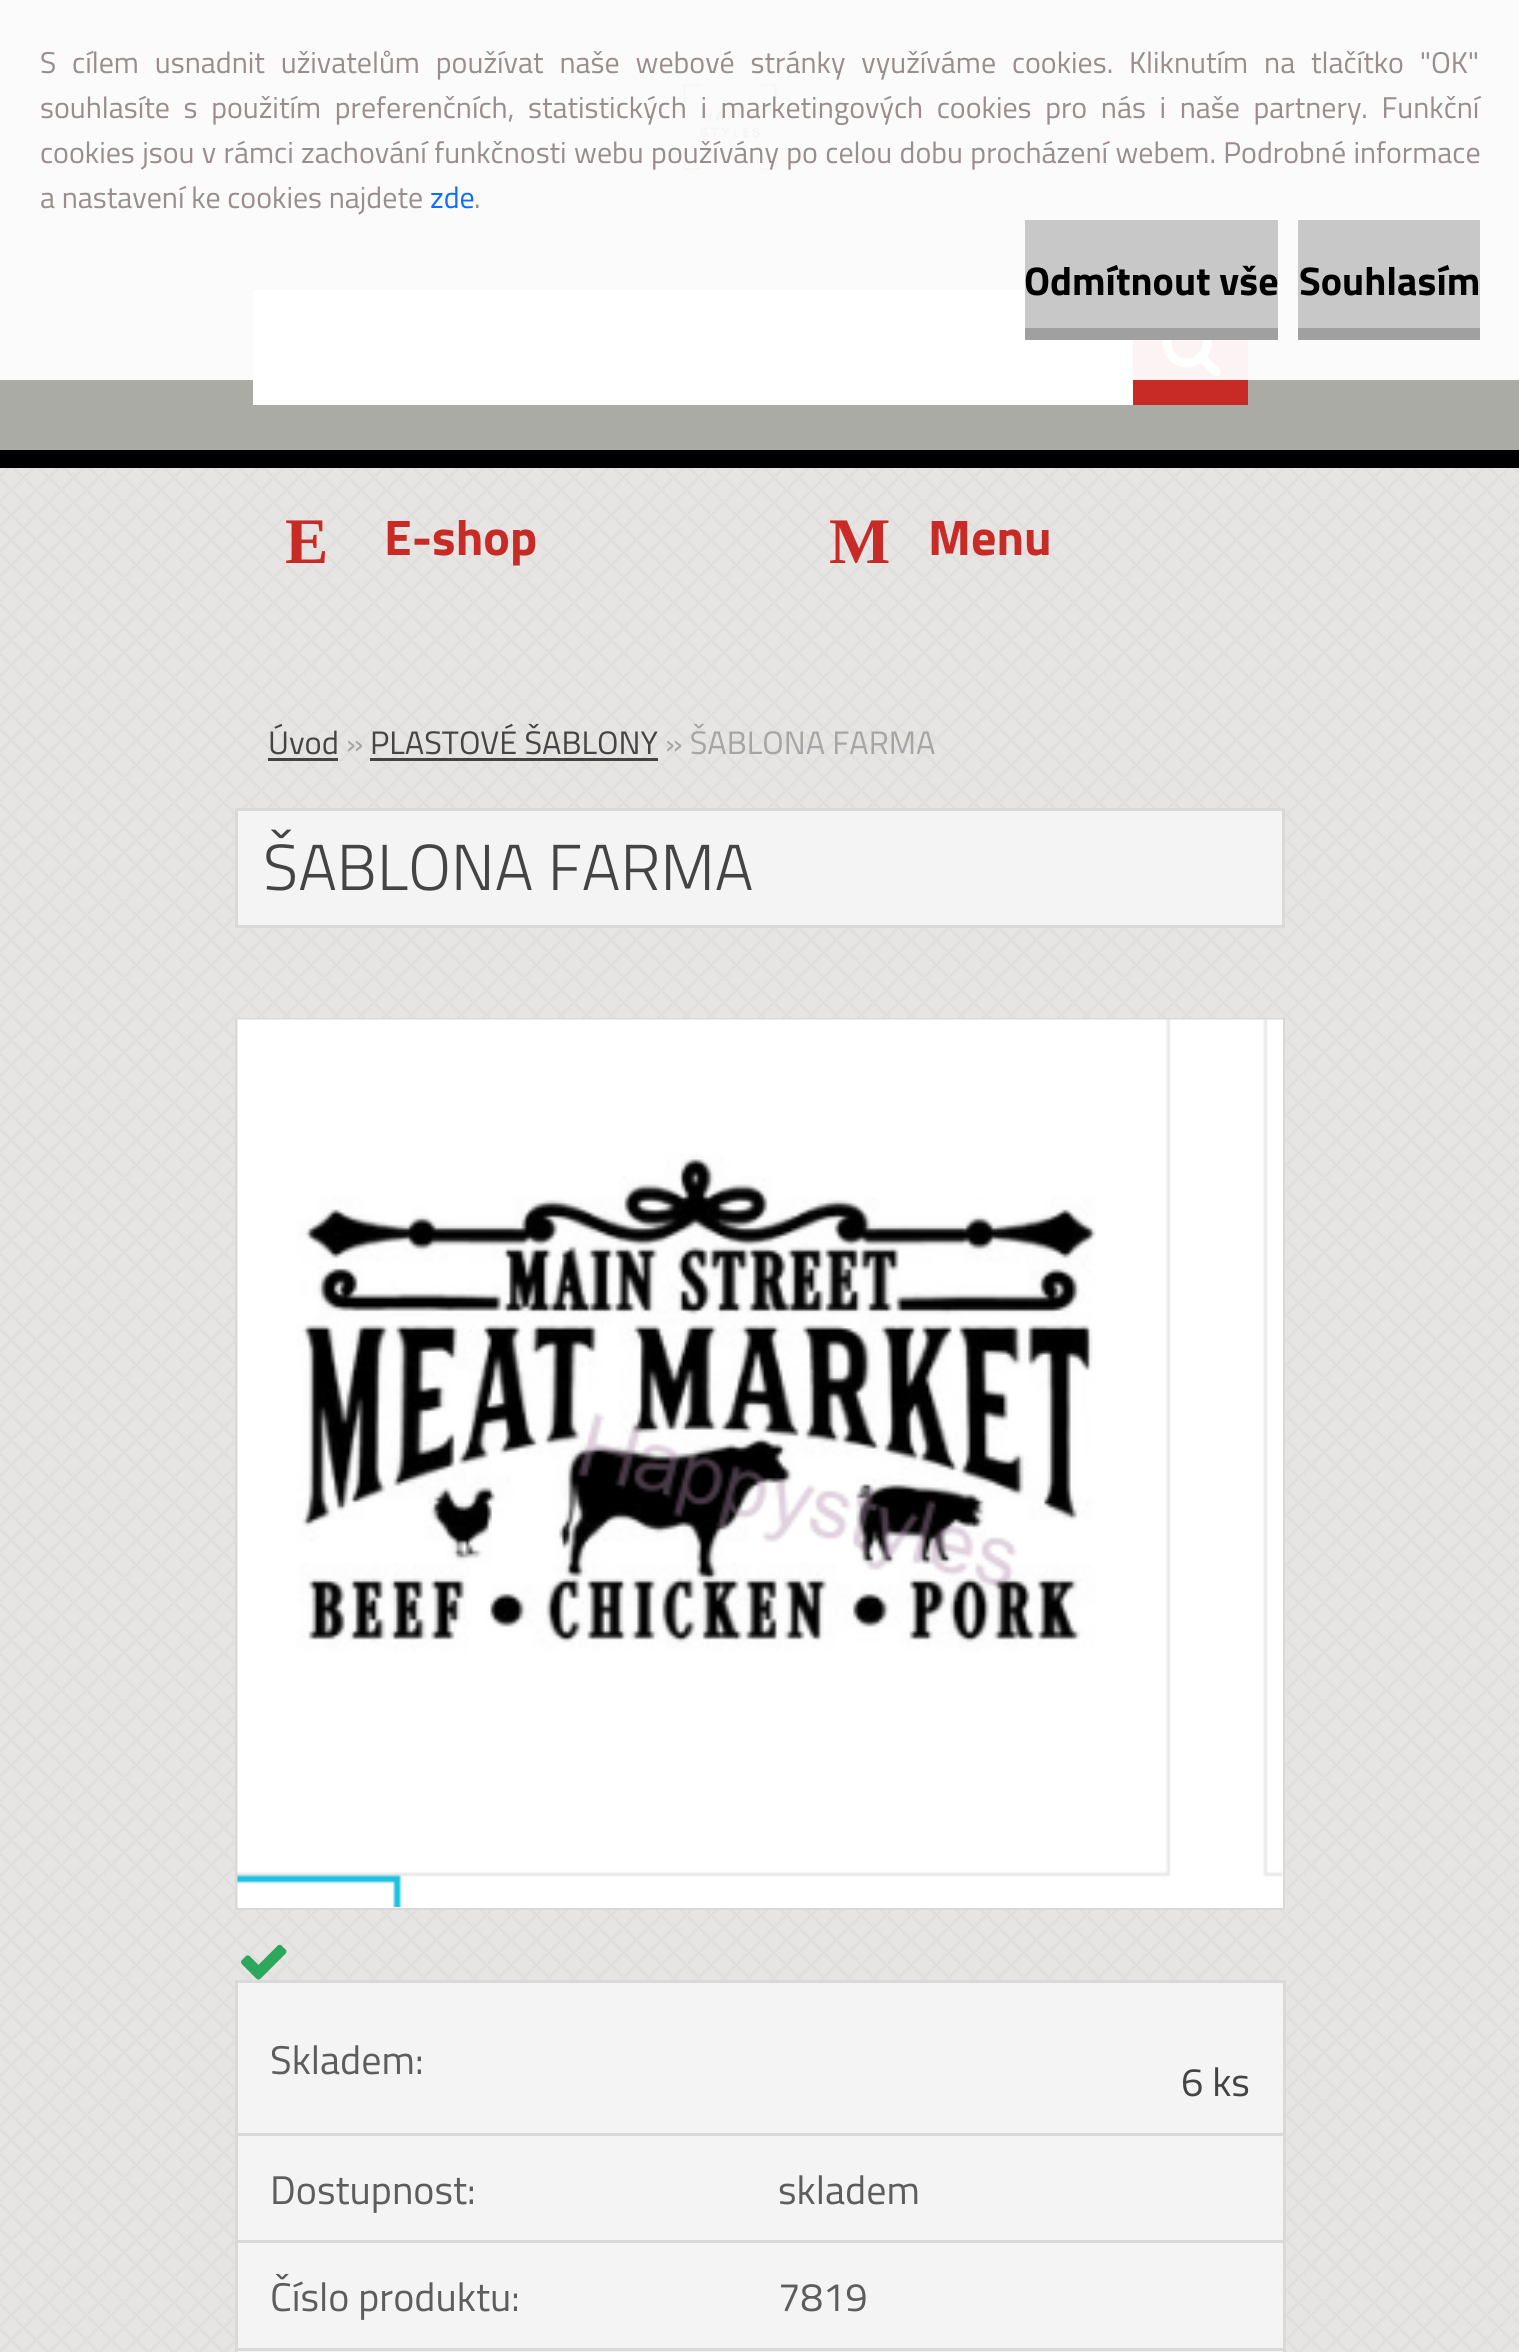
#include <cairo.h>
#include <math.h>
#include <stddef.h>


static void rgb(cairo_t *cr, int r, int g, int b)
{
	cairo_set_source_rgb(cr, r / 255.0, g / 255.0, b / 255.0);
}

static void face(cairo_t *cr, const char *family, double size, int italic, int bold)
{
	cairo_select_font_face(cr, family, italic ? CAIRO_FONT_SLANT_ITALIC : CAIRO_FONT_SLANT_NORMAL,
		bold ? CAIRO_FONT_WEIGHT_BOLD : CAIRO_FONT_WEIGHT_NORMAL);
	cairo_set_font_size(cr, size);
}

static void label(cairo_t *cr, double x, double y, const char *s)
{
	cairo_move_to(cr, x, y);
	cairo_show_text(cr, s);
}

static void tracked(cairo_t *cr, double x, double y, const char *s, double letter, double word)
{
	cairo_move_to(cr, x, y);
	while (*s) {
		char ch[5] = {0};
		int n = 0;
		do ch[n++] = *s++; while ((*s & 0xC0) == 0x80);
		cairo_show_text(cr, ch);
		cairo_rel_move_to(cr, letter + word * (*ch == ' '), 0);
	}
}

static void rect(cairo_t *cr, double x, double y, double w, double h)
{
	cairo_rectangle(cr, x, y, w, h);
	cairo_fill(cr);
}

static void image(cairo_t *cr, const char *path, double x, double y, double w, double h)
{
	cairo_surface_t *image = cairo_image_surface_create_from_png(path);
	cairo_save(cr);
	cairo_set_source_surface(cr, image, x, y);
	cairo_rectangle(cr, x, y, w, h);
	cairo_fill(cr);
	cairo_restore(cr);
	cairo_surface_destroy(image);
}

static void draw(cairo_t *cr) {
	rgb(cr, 231, 228, 228);
	cairo_paint(cr);
	rgb(cr, 251, 251, 251);
	rect(cr, 0, 0, 1519, 380);
	image(cr, "image0.png", 605, 2, 250, 250);
	face(cr, "Titillium Web", 30, 0, 0);
	rgb(cr, 153, 141, 141);
	tracked(cr, 40, 73, "S cílem usnadnit uživatelům používat naše webové stránky využíváme cookies. Kliknutím na tlačítko \"OK\"", 0, 9.25);
	tracked(cr, 40, 118, "souhlasíte s použitím preferenčních, statistických i marketingových cookies pro nás i naše partnery. Funkční", 0, 7);
	tracked(cr, 40, 163, "cookies jsou v rámci zachování funkčnosti webu používány po celou dobu procházení webem. Podrobné informace", 0, 0.75);
	label(cr, 40, 208, "a nastavení ke cookies najdete");
	rgb(cr, 13, 110, 253);
	label(cr, 430, 208, "zde");
	rgb(cr, 153, 141, 141);
	label(cr, 474, 208, ".");
	rgb(cr, 171, 171, 166);
	rect(cr, 0, 380, 1519, 70);
	rgb(cr, 255, 255, 255);
	rect(cr, 253, 290, 880, 115);
	rgb(cr, 200, 200, 200);
	rect(cr, 1025, 220, 253, 108);
	rgb(cr, 160, 160, 160);
	rect(cr, 1025, 328, 253, 12);
	face(cr, "Titillium Web", 40, 0, 1);
	rgb(cr, 0, 0, 0);
	label(cr, 1024, 295, "Odmítnout vše");
	rgb(cr, 200, 200, 200);
	rect(cr, 1298, 220, 182, 108);
	rgb(cr, 160, 160, 160);
	rect(cr, 1298, 328, 182, 12);
	rgb(cr, 0, 0, 0);
	label(cr, 1299, 295, "Souhlasím");
	rect(cr, 0, 450, 1519, 18);
	rgb(cr, 200, 43, 38);
	rect(cr, 1133, 380, 115, 25);
	rgb(cr, 252, 244, 244);
	rect(cr, 1133, 340, 115, 40);
	image(cr, "image1.png", 1162, 340, 59, 37);
	image(cr, "image2.png", 0, 468, 1519, 1884);
	face(cr, "Liberation Serif", 65, 0, 1);
	rgb(cr, 200, 43, 38);
	label(cr, 285, 563, "E");
	face(cr, "Titillium Web", 50, 0, 1);
	label(cr, 384, 555, "E-shop");
	face(cr, "Liberation Serif", 65, 0, 1);
	label(cr, 829, 563, "M");
	face(cr, "Titillium Web", 50, 0, 1);
	label(cr, 928, 555, "Menu");
	face(cr, "Titillium Web", 32.5, 0, 0);
	rgb(cr, 69, 68, 68);
	label(cr, 268, 754, "Úvod");
	cairo_set_source_rgba(cr, 0, 0, 0, 0.7);
	rect(cr, 268, 758, 70, 3);
	rgb(cr, 165, 165, 165);
	label(cr, 346, 754, "»");
	rgb(cr, 69, 68, 68);
	label(cr, 370, 754, "PLASTOVÉ ŠABLONY");
	cairo_set_source_rgba(cr, 0, 0, 0, 0.7);
	rect(cr, 370, 758, 288, 3);
	rgb(cr, 165, 165, 165);
	label(cr, 665, 754, "» ŠABLONA FARMA");
	rgb(cr, 244, 244, 244);
	cairo_rectangle(cr, 236.5, 809.5, 1047, 117);
	cairo_fill_preserve(cr);
	rgb(cr, 217, 217, 217);
	cairo_set_line_width(cr, 3);
	cairo_stroke(cr);
	face(cr, "Titillium Web Light", 65, 0, 0);
	rgb(cr, 69, 68, 68);
	label(cr, 263, 890, "ŠABLONA FARMA");
	cairo_rectangle(cr, 236.5, 1019.5, 1047, 889);
	rgb(cr, 217, 217, 217);
	cairo_stroke(cr);
	rgb(cr, 255, 255, 255);
	rect(cr, 238, 1020, 1045, 888);
	image(cr, "image3.png", 237, 1019, 1046, 888);
	image(cr, "image4.png", 241, 1944, 46, 36);
	rgb(cr, 217, 217, 217);
	rect(cr, 235, 1980, 1050, 3);
	rgb(cr, 244, 244, 244);
	rect(cr, 238, 2351, 1047, 1);
	rgb(cr, 217, 217, 217);
	rect(cr, 1283, 1980, 3, 372);
	rect(cr, 235, 1980, 3, 372);
	rgb(cr, 244, 244, 244);
	rect(cr, 238, 1983, 1045, 150);
	face(cr, "Titillium Web", 40, 0, 0);
	rgb(cr, 93, 93, 93);
	label(cr, 270, 2074, "Skladem:");
	rgb(cr, 69, 68, 68);
	label(cr, 1181, 2096, "6 ks");
	rgb(cr, 244, 244, 244);
	rect(cr, 238, 2136, 1045, 104);
	rgb(cr, 217, 217, 217);
	rect(cr, 235, 2133, 1050, 3);
	rgb(cr, 93, 93, 93);
	label(cr, 270, 2204, "Dostupnost:");
	label(cr, 778, 2204, "skladem");
	rgb(cr, 244, 244, 244);
	rect(cr, 238, 2243, 1045, 105);
	rgb(cr, 217, 217, 217);
	rect(cr, 235, 2240, 1050, 3);
	rgb(cr, 93, 93, 93);
	label(cr, 270, 2311, "Číslo produktu:");
	label(cr, 778, 2311, "7819");
	rgb(cr, 217, 217, 217);
	rect(cr, 235, 2348, 1050, 3);
}

int main(void) {
	cairo_surface_t *surface = cairo_image_surface_create(CAIRO_FORMAT_RGB24, 1519, 2352);
	cairo_t *cr = cairo_create(surface);
	cairo_font_options_t *options = cairo_font_options_create();
	cairo_font_options_set_hint_metrics(options, CAIRO_HINT_METRICS_OFF);
	cairo_font_options_set_hint_style(options, CAIRO_HINT_STYLE_NONE);
	cairo_set_font_options(cr, options);
	cairo_set_miter_limit(cr, 4);
	draw(cr);
	cairo_surface_write_to_png(surface, "render.png");
	cairo_font_options_destroy(options);
	cairo_destroy(cr);
	cairo_surface_destroy(surface);
	return 0;
}
